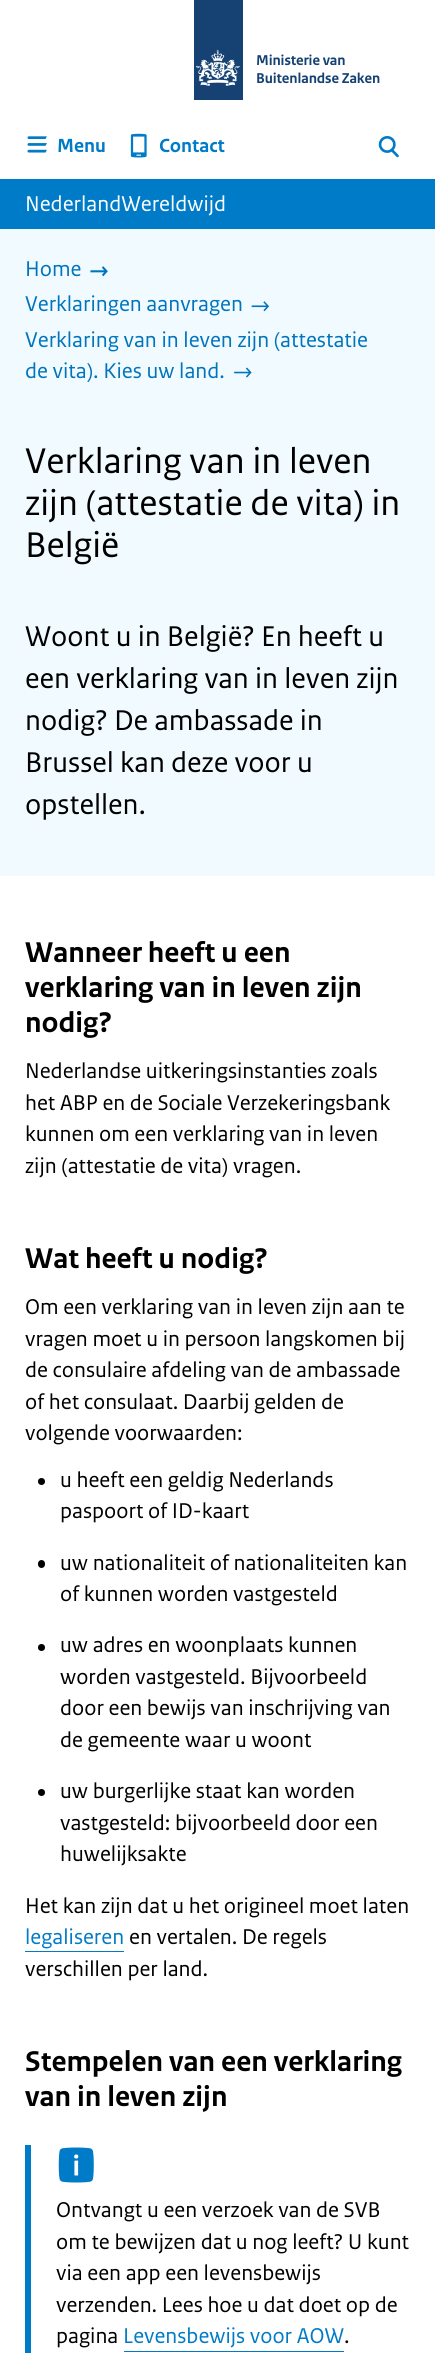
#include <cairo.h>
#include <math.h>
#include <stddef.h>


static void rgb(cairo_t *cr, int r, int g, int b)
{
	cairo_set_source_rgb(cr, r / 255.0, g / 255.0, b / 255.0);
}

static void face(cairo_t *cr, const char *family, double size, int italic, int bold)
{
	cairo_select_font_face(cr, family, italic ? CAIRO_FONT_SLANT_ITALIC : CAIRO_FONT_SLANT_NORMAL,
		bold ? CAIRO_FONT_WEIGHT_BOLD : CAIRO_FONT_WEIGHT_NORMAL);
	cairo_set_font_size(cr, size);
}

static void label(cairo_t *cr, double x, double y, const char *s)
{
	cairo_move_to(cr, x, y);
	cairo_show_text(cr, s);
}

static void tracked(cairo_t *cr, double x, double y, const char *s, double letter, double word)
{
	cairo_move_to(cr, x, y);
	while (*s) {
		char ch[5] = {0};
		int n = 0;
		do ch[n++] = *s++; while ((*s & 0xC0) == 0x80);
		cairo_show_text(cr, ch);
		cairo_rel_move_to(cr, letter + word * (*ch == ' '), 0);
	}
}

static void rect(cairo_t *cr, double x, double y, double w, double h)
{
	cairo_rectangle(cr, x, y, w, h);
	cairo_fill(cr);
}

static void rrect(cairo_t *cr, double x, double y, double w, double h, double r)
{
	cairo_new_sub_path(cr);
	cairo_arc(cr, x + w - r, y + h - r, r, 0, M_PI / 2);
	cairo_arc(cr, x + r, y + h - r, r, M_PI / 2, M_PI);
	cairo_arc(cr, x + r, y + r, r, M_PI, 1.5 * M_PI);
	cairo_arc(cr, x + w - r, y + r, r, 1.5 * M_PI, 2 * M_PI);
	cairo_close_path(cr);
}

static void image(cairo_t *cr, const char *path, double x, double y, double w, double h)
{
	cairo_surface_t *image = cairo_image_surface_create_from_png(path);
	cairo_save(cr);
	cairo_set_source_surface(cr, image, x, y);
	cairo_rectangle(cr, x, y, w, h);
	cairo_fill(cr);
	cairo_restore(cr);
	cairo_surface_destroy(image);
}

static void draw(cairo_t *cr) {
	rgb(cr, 255, 255, 255);
	cairo_paint(cr);
	image(cr, "image0.png", 194, 0, 49, 100);
	face(cr, "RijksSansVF", 15, 0, 1);
	rgb(cr, 21, 66, 115);
	tracked(cr, 256, 65, "Ministerie van", -0.1, 0);
	tracked(cr, 256, 83, "Buitenlandse Zaken", -0.1, 0);
	image(cr, "image1.png", 27, 136, 20, 17);
	face(cr, "RijksSansVF", 20, 0, 1);
	rgb(cr, 0, 123, 199);
	label(cr, 57, 152, "Menu");
	image(cr, "image2.png", 130, 133, 17, 25);
	label(cr, 159, 152, "Contact");
	image(cr, "image3.png", 378, 136, 21, 22);
	rect(cr, 0, 179, 435, 50);
	face(cr, "RijksSansVF", 22.5, 0, 0);
	rgb(cr, 255, 255, 255);
	label(cr, 25, 211, "NederlandWereldwijd");
	rgb(cr, 241, 250, 255);
	rect(cr, 0, 229, 435, 647);
	rgb(cr, 0, 116, 189);
	label(cr, 25, 276, "Home");
	image(cr, "image4.png", 90, 266, 18, 11);
	label(cr, 25, 311, "Verklaringen aanvragen");
	image(cr, "image5.png", 251, 301, 18, 11);
	label(cr, 25, 347, "Verklaring van in leven zijn (attestatie");
	label(cr, 25, 378, "de vita). Kies uw land.");
	image(cr, "image6.png", 234, 367, 18, 11);
	face(cr, "RijksSansVF", 37.5, 0, 0);
	rgb(cr, 0, 0, 0);
	label(cr, 25, 473, "Verklaring van in leven");
	label(cr, 25, 515, "zijn (attestatie de vita) in");
	label(cr, 25, 557, "België");
	face(cr, "RijksSansVF", 30, 0, 0);
	label(cr, 25, 646, "Woont u in België? En heeft u");
	label(cr, 25, 688, "een verklaring van in leven zijn");
	label(cr, 25, 730, "nodig? De ambassade in");
	label(cr, 25, 772, "Brussel kan deze voor u");
	label(cr, 25, 814, "opstellen.");
	face(cr, "RijksSansVF", 30, 0, 1);
	label(cr, 25, 962, "Wanneer heeft u een");
	label(cr, 25, 997, "verklaring van in leven zijn");
	label(cr, 25, 1032, "nodig?");
	face(cr, "RijksSansVF", 22.5, 0, 0);
	label(cr, 25, 1078, "Nederlandse uitkeringsinstanties zoals");
	label(cr, 25, 1110, "het ABP en de Sociale Verzekeringsbank");
	label(cr, 25, 1141, "kunnen om een verklaring van in leven");
	label(cr, 25, 1173, "zijn (attestatie de vita) vragen.");
	face(cr, "RijksSansVF", 30, 0, 1);
	label(cr, 25, 1268, "Wat heeft u nodig?");
	face(cr, "RijksSansVF", 22.5, 0, 0);
	label(cr, 25, 1314, "Om een verklaring van in leven zijn aan te");
	label(cr, 25, 1346, "vragen moet u in persoon langskomen bij");
	label(cr, 25, 1377, "de consulaire afdeling van de ambassade");
	label(cr, 25, 1409, "of het consulaat. Daarbij gelden de");
	label(cr, 25, 1440, "volgende voorwaarden:");
	cairo_new_path(cr);
	cairo_arc(cr, 41.5, 1481.5, 3.5, 0, 2 * M_PI);
	cairo_fill(cr);
	label(cr, 60, 1487, "u heeft een geldig Nederlands");
	label(cr, 60, 1518, "paspoort of ID-kaart");
	rrect(cr, 38, 1560, 7, 8, 3.5);
	cairo_fill(cr);
	label(cr, 60, 1570, "uw nationaliteit of nationaliteiten kan");
	label(cr, 60, 1601, "of kunnen worden vastgesteld");
	cairo_new_path(cr);
	cairo_arc(cr, 41.5, 1647.5, 3.5, 0, 2 * M_PI);
	cairo_fill(cr);
	label(cr, 60, 1652, "uw adres en woonplaats kunnen");
	label(cr, 60, 1684, "worden vastgesteld. Bijvoorbeeld");
	label(cr, 60, 1715, "door een bewijs van inschrijving van");
	label(cr, 60, 1747, "de gemeente waar u woont");
	cairo_new_path(cr);
	cairo_arc(cr, 41.5, 1792.5, 3.5, 0, 2 * M_PI);
	cairo_fill(cr);
	label(cr, 60, 1798, "uw burgerlijke staat kan worden");
	label(cr, 60, 1830, "vastgesteld: bijvoorbeeld door een");
	label(cr, 60, 1861, "huwelijksakte");
	label(cr, 25, 1913, "Het kan zijn dat u het origineel moet laten");
	rgb(cr, 0, 123, 199);
	label(cr, 25, 1944, "legaliseren");
	rect(cr, 25, 1951, 99, 1);
	rgb(cr, 0, 0, 0);
	label(cr, 129, 1944, "en vertalen. De regels");
	label(cr, 25, 1976, "verschillen per land.");
	face(cr, "RijksSansVF", 30, 0, 1);
	label(cr, 25, 2071, "Stempelen van een verklaring");
	label(cr, 25, 2106, "van in leven zijn");
	rgb(cr, 0, 123, 199);
	rect(cr, 25, 2145, 6, 208);
	image(cr, "image7.png", 58, 2147, 36, 36);
	face(cr, "RijksSansVF", 22.5, 0, 0);
	rgb(cr, 0, 0, 0);
	label(cr, 56, 2217, "Ontvangt u een verzoek van de SVB");
	label(cr, 56, 2249, "om te bewijzen dat u nog leeft? U kunt");
	label(cr, 56, 2280, "via een app een levensbewijs");
	label(cr, 56, 2312, "verzenden. Lees hoe u dat doet op de");
	label(cr, 56, 2343, "pagina");
	rgb(cr, 0, 123, 199);
	label(cr, 123, 2343, "Levensbewijs voor AOW");
	rect(cr, 124, 2351, 220, 1);
	rgb(cr, 0, 0, 0);
	label(cr, 344, 2343, ".");
}

int main(void) {
	cairo_surface_t *surface = cairo_image_surface_create(CAIRO_FORMAT_RGB24, 435, 2368);
	cairo_t *cr = cairo_create(surface);
	cairo_font_options_t *options = cairo_font_options_create();
	cairo_font_options_set_hint_metrics(options, CAIRO_HINT_METRICS_OFF);
	cairo_font_options_set_hint_style(options, CAIRO_HINT_STYLE_NONE);
	cairo_set_font_options(cr, options);
	cairo_set_miter_limit(cr, 4);
	draw(cr);
	cairo_surface_write_to_png(surface, "render.png");
	cairo_font_options_destroy(options);
	cairo_destroy(cr);
	cairo_surface_destroy(surface);
	return 0;
}
